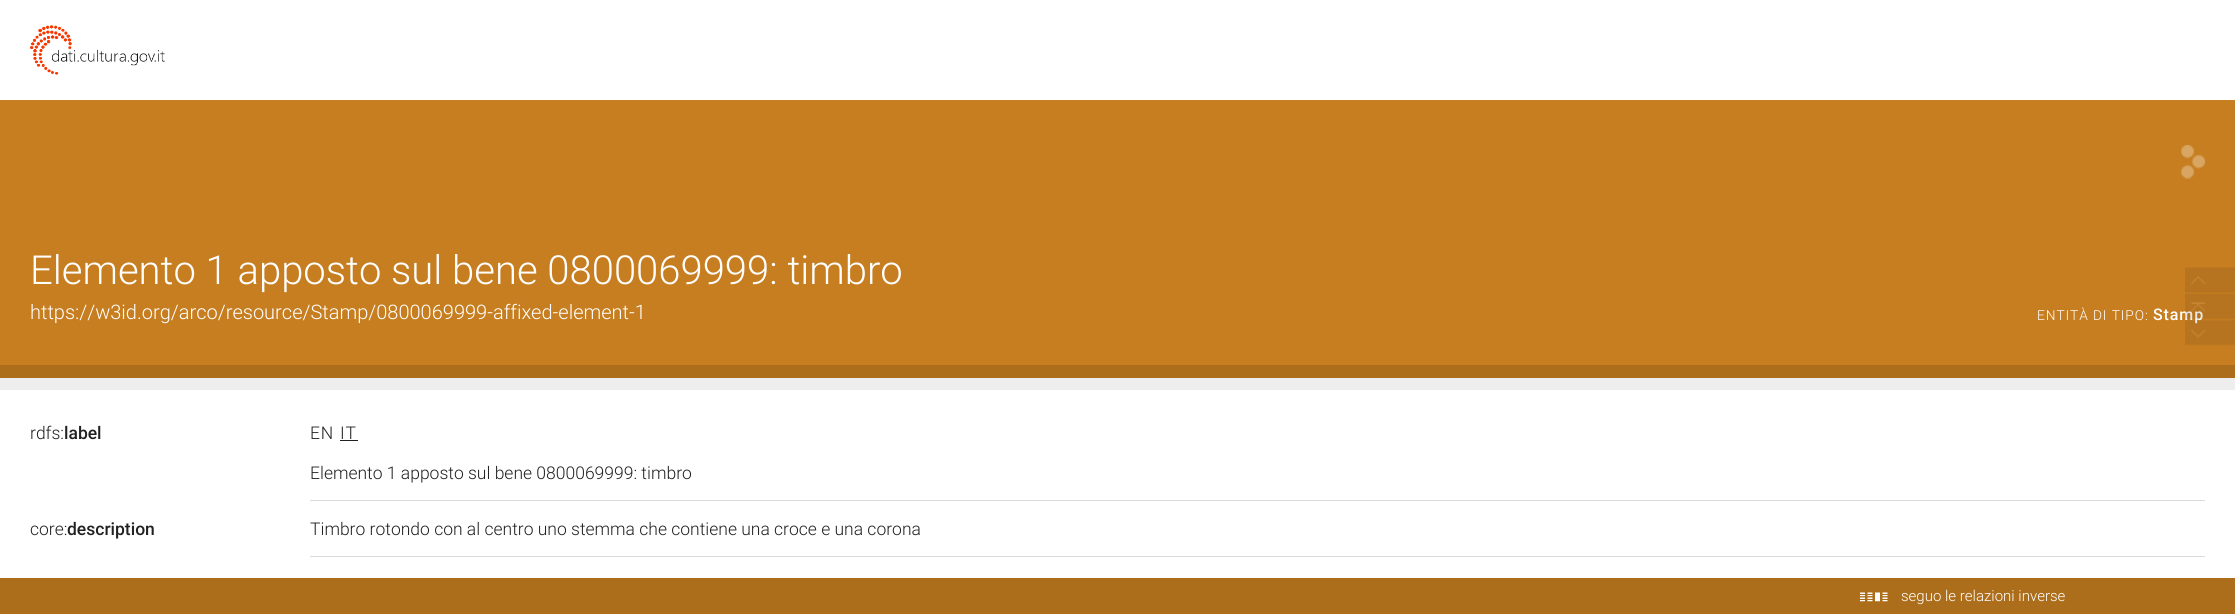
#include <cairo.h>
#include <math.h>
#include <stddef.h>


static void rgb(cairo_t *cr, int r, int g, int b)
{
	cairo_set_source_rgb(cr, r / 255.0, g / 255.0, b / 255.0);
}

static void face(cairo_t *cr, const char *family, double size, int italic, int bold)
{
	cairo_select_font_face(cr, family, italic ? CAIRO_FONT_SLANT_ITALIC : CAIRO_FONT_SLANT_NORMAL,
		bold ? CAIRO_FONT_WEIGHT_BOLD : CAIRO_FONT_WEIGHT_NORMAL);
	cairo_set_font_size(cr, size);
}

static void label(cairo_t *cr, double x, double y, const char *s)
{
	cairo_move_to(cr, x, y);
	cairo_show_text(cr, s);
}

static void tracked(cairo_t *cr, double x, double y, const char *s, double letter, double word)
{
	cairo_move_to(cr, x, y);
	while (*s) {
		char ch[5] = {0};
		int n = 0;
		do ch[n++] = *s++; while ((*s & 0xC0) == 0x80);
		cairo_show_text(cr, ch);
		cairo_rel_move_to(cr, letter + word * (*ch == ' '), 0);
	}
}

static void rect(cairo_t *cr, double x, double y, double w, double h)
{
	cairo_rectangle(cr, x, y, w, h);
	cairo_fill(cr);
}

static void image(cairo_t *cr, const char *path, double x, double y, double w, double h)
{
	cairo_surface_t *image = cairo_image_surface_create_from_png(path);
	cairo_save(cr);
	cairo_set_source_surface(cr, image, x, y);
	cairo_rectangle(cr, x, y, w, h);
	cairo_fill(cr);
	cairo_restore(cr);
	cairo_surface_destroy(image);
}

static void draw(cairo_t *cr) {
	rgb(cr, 255, 255, 255);
	cairo_paint(cr);
	image(cr, "image0.png", 30, 25, 135, 50);
	rgb(cr, 199, 126, 32);
	rect(cr, 0, 100, 2235, 265);
	face(cr, "Roboto Light", 40, 0, 0);
	rgb(cr, 255, 255, 255);
	label(cr, 30, 284, "Elemento 1 apposto sul bene 0800069999: timbro");
	image(cr, "image1.png", 2181, 145, 24, 34);
	face(cr, "Roboto Light", 20, 0, 0);
	label(cr, 30, 319, "https://w3id.org/arco/resource/Stamp/0800069999-affixed-element-1");
	face(cr, "Roboto Light", 13.75, 0, 0);
	tracked(cr, 2037, 320, "ENTITÀ DI TIPO:", 0.9, 0);
	face(cr, "Roboto Medium", 16, 0, 0);
	tracked(cr, 2153, 320, "Stamp", 0.9, 0);
	rgb(cr, 173, 110, 28);
	rect(cr, 0, 365, 2235, 13);
	rgb(cr, 238, 238, 238);
	rect(cr, 0, 378, 2235, 12);
	face(cr, "Roboto Light", 17.5, 0, 0);
	rgb(cr, 33, 33, 33);
	label(cr, 30, 439, "rdfs:");
	face(cr, "Roboto Medium", 17.5, 0, 0);
	label(cr, 64, 439, "label");
	rgb(cr, 219, 219, 219);
	rect(cr, 310, 500, 1895, 1);
	face(cr, "Roboto Light", 17.5, 0, 0);
	rgb(cr, 33, 33, 33);
	tracked(cr, 310, 439, "EN", 0.9, 0);
	tracked(cr, 340, 439, "IT", 0.9, 0);
	rect(cr, 340, 440, 18, 1);
	label(cr, 310, 479, "Elemento 1 apposto sul bene 0800069999: timbro");
	label(cr, 30, 535, "core:");
	face(cr, "Roboto Medium", 17.5, 0, 0);
	label(cr, 67, 535, "description");
	rgb(cr, 219, 219, 219);
	rect(cr, 310, 556, 1895, 1);
	face(cr, "Roboto Light", 17.5, 0, 0);
	rgb(cr, 33, 33, 33);
	label(cr, 310, 535, "Timbro rotondo con al centro uno stemma che contiene una croce e una corona");
	image(cr, "image2.png", 2185, 267, 50, 26);
	image(cr, "image3.png", 2185, 293, 50, 26);
	image(cr, "image4.png", 2185, 319, 50, 27);
	rgb(cr, 173, 110, 28);
	rect(cr, 0, 578, 2235, 36);
	image(cr, "image5.png", 1860, 592, 28, 10);
	face(cr, "Roboto Light", 15, 0, 0);
	rgb(cr, 255, 255, 255);
	label(cr, 1901, 601, "seguo le relazioni inverse");
}

int main(void) {
	cairo_surface_t *surface = cairo_image_surface_create(CAIRO_FORMAT_RGB24, 2235, 614);
	cairo_t *cr = cairo_create(surface);
	cairo_font_options_t *options = cairo_font_options_create();
	cairo_font_options_set_hint_metrics(options, CAIRO_HINT_METRICS_OFF);
	cairo_font_options_set_hint_style(options, CAIRO_HINT_STYLE_NONE);
	cairo_set_font_options(cr, options);
	cairo_set_miter_limit(cr, 4);
	draw(cr);
	cairo_surface_write_to_png(surface, "render.png");
	cairo_font_options_destroy(options);
	cairo_destroy(cr);
	cairo_surface_destroy(surface);
	return 0;
}
